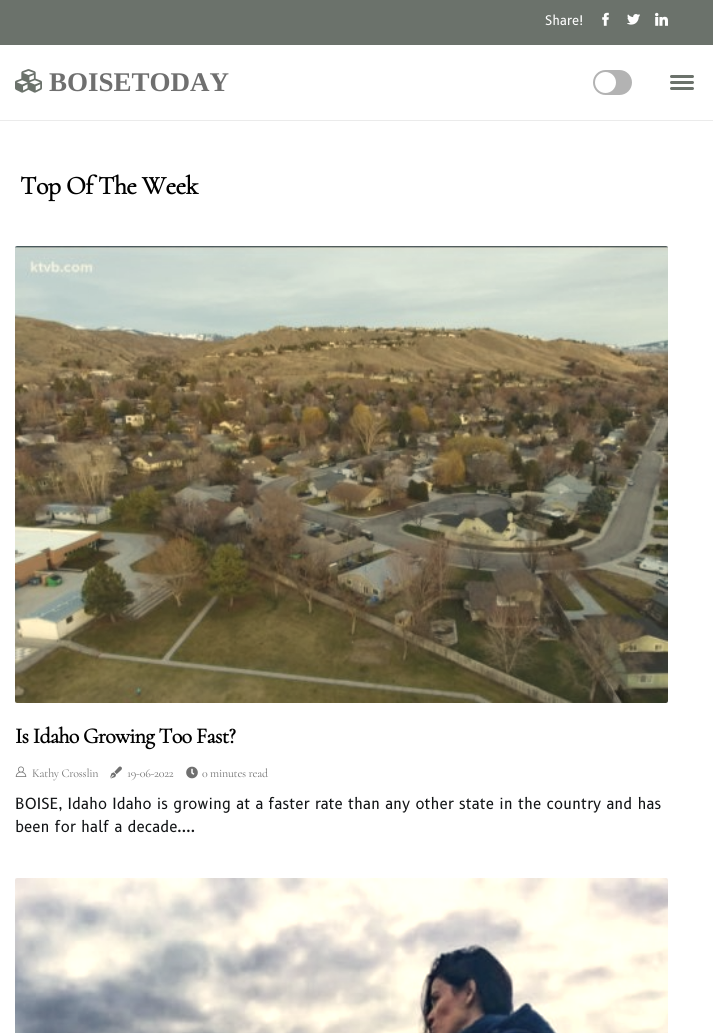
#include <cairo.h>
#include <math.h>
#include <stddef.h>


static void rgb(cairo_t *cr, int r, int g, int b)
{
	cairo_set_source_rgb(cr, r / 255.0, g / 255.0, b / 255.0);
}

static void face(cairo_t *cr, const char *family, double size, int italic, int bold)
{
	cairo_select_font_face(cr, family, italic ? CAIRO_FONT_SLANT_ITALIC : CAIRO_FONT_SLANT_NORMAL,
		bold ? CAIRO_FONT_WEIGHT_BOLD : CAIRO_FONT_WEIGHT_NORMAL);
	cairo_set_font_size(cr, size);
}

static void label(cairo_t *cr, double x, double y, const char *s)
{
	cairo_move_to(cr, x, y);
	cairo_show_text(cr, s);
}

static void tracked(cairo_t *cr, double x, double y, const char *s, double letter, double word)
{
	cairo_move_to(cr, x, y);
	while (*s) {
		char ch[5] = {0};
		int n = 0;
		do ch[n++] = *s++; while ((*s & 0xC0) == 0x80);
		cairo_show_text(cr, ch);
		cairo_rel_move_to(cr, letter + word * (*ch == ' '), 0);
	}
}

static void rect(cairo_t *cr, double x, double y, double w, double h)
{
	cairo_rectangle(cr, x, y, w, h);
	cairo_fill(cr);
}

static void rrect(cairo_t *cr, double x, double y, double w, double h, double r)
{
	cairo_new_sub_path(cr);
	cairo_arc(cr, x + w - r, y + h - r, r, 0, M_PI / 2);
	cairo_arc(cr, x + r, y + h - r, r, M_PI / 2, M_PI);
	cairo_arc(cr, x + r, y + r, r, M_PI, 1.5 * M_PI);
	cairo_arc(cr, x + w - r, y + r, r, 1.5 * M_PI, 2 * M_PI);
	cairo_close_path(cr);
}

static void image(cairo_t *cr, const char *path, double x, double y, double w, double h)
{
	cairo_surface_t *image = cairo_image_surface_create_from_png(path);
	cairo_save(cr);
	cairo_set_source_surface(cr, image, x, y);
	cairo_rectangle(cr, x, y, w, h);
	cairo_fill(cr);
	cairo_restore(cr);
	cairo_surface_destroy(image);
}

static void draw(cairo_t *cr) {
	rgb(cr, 255, 255, 255);
	cairo_paint(cr);
	rgb(cr, 107, 114, 107);
	rect(cr, 0, 0, 713, 45);
	face(cr, "B612", 13, 0, 0);
	rgb(cr, 255, 255, 255);
	label(cr, 545, 25, "Share!");
	image(cr, "image0.png", 602, 12, 7, 14);
	image(cr, "image1.png", 627, 14, 13, 11);
	image(cr, "image2.png", 655, 12, 13, 14);
	rgb(cr, 235, 235, 235);
	rect(cr, 0, 120, 713, 1);
	image(cr, "image3.png", 15, 69, 27, 24);
	face(cr, "Liberation Serif", 27, 0, 1);
	rgb(cr, 111, 111, 111);
	label(cr, 49, 91, "BOISETODAY");
	rgb(cr, 179, 179, 179);
	rrect(cr, 593, 70, 39, 25, 12.5);
	cairo_fill(cr);
	rgb(cr, 255, 255, 255);
	cairo_arc(cr, 605.5, 82.5, 10.5, 0, 2 * M_PI);
	cairo_fill(cr);
	rgb(cr, 107, 114, 107);
	rrect(cr, 670, 75, 24, 3, 1.5);
	cairo_fill(cr);
	rrect(cr, 670, 81, 24, 3, 1.5);
	cairo_fill(cr);
	rrect(cr, 670, 87, 24, 3, 1.5);
	cairo_fill(cr);
	face(cr, "Cormorant", 26, 0, 1);
	rgb(cr, 0, 0, 0);
	tracked(cr, 20, 194, "Top Of The Week", -0.6, 0);
	image(cr, "image4.png", 15, 246, 653, 457);
	face(cr, "Cormorant", 22, 0, 1);
	tracked(cr, 15, 743, "Is Idaho Growing Too Fast?", -0.7, 0);
	image(cr, "image5.png", 15, 766, 12, 11);
	face(cr, "Cormorant Light", 12, 0, 0);
	rgb(cr, 111, 111, 111);
	tracked(cr, 32, 777, "Kathy Crosslin", -0.25, 0);
	image(cr, "image6.png", 110, 766, 12, 13);
	tracked(cr, 127, 777, "19-06-2022", -0.25, 0);
	image(cr, "image7.png", 186, 766, 12, 13);
	tracked(cr, 202, 777, "0 minutes read", -0.25, 0);
	face(cr, "B612", 15, 0, 0);
	rgb(cr, 18, 20, 22);
	label(cr, 15, 809, "BOISE, Idaho Idaho is growing at a faster rate than any other state in the country and has");
	label(cr, 15, 832, "been for half a decade....");
	image(cr, "image8.png", 15, 878, 653, 155);
}

int main(void) {
	cairo_surface_t *surface = cairo_image_surface_create(CAIRO_FORMAT_RGB24, 713, 1033);
	cairo_t *cr = cairo_create(surface);
	cairo_font_options_t *options = cairo_font_options_create();
	cairo_font_options_set_hint_metrics(options, CAIRO_HINT_METRICS_OFF);
	cairo_font_options_set_hint_style(options, CAIRO_HINT_STYLE_NONE);
	cairo_set_font_options(cr, options);
	cairo_set_miter_limit(cr, 4);
	draw(cr);
	cairo_surface_write_to_png(surface, "render.png");
	cairo_font_options_destroy(options);
	cairo_destroy(cr);
	cairo_surface_destroy(surface);
	return 0;
}
